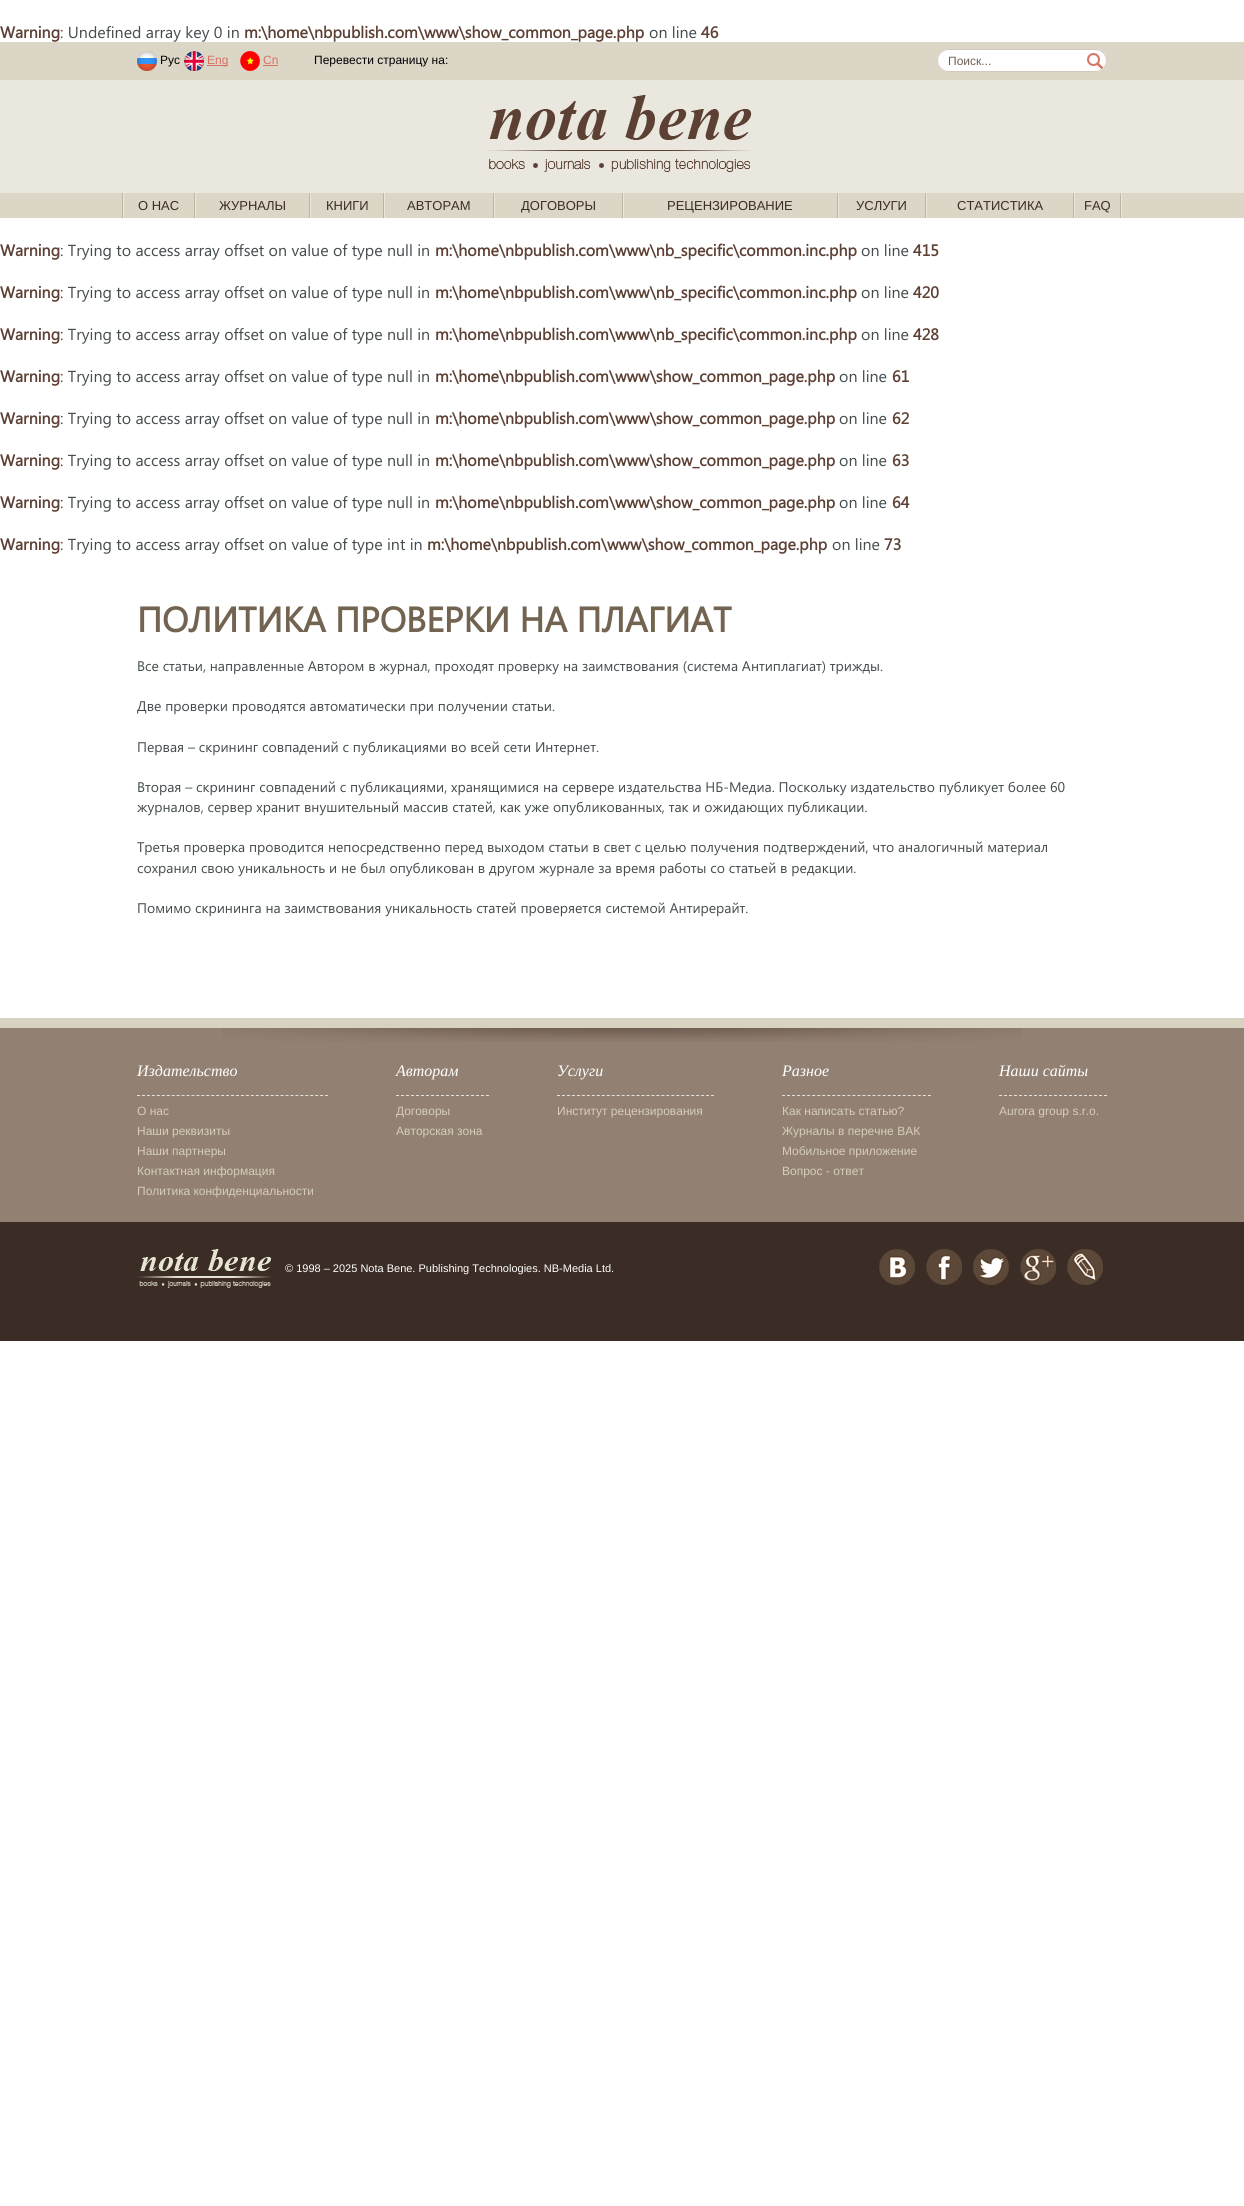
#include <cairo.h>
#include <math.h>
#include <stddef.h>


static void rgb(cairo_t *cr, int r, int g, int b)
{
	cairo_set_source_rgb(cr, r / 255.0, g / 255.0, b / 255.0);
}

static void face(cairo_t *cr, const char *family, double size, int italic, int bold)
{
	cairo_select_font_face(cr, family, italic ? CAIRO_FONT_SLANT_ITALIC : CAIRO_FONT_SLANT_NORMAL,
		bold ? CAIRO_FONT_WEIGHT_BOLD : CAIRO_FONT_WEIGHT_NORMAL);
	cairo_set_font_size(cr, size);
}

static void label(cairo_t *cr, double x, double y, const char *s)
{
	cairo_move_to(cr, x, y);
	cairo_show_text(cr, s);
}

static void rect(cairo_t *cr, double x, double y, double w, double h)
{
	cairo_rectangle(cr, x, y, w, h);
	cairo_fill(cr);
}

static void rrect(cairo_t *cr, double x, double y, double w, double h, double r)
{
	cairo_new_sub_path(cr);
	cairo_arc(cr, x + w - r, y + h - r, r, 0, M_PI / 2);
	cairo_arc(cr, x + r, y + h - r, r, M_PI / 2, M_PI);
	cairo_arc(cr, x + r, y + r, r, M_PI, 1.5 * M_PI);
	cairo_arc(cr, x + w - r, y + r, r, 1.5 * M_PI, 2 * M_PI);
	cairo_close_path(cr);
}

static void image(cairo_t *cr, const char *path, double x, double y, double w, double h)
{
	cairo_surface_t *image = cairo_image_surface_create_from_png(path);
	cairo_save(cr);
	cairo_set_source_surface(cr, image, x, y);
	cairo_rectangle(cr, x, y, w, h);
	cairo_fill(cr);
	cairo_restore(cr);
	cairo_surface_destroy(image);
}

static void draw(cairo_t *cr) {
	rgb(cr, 255, 255, 255);
	cairo_paint(cr);
	face(cr, "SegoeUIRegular", 16, 0, 1);
	rgb(cr, 92, 64, 52);
	label(cr, 0, 38, "Warning");
	face(cr, "SegoeUIRegular", 16, 0, 0);
	rgb(cr, 68, 76, 78);
	label(cr, 60, 38, ": Undefined array key 0 in");
	face(cr, "SegoeUIRegular", 16, 0, 1);
	rgb(cr, 92, 64, 52);
	label(cr, 244, 38, "m:\\home\\nbpublish.com\\www\\show_common_page.php");
	face(cr, "SegoeUIRegular", 16, 0, 0);
	rgb(cr, 68, 76, 78);
	label(cr, 649, 38, "on line");
	face(cr, "SegoeUIRegular", 16, 0, 1);
	rgb(cr, 92, 64, 52);
	label(cr, 701, 38, "46");
	rgb(cr, 219, 214, 198);
	rect(cr, 0, 42, 1244, 176);
	image(cr, "image0.png", 137, 51, 20, 20);
	face(cr, "Liberation Sans", 12, 0, 0);
	rgb(cr, 0, 0, 0);
	label(cr, 160, 64, "Рус");
	image(cr, "image1.png", 184, 51, 20, 20);
	rgb(cr, 216, 114, 101);
	rect(cr, 207, 65, 21, 1);
	label(cr, 207, 64, "Eng");
	image(cr, "image2.png", 240, 51, 20, 20);
	label(cr, 263, 64, "Cn");
	rect(cr, 263, 65, 15, 1);
	rgb(cr, 0, 0, 0);
	label(cr, 314, 64, "Перевести страницу на:");
	rgb(cr, 255, 255, 255);
	rrect(cr, 937, 49, 170, 23, 11.5);
	cairo_fill(cr);
	image(cr, "image3.png", 1087, 53, 16, 16);
	rrect(cr, 937.5, 49.5, 169, 22, 11);
	rgb(cr, 210, 200, 192);
	cairo_set_line_width(cr, 1);
	cairo_stroke(cr);
	rgb(cr, 108, 96, 85);
	label(cr, 948, 65, "Поиск...");
	rgb(cr, 234, 231, 223);
	rect(cr, 0, 80, 1244, 113);
	image(cr, "image4.png", 484, 95, 269, 77);
	image(cr, "image5.png", 122, 193, 2, 25);
	face(cr, "Liberation Sans", 13, 0, 0);
	rgb(cr, 59, 44, 37);
	label(cr, 138, 210, "О НАС");
	image(cr, "image5.png", 194, 193, 2, 25);
	label(cr, 219, 210, "ЖУРНАЛЫ");
	image(cr, "image5.png", 309, 193, 2, 25);
	label(cr, 326, 210, "КНИГИ");
	image(cr, "image5.png", 383, 193, 2, 25);
	label(cr, 407, 210, "АВТОРАМ");
	image(cr, "image5.png", 493, 193, 2, 25);
	label(cr, 521, 210, "ДОГОВОРЫ");
	image(cr, "image5.png", 622, 193, 2, 25);
	label(cr, 667, 210, "РЕЦЕНЗИРОВАНИЕ");
	image(cr, "image5.png", 837, 193, 2, 25);
	label(cr, 856, 210, "УСЛУГИ");
	image(cr, "image5.png", 925, 193, 2, 25);
	label(cr, 957, 210, "СТАТИСТИКА");
	image(cr, "image5.png", 1073, 193, 2, 25);
	label(cr, 1084, 210, "FAQ");
	image(cr, "image5.png", 1120, 193, 2, 25);
	face(cr, "SegoeUIRegular", 16, 0, 1);
	rgb(cr, 92, 64, 52);
	label(cr, 0, 256, "Warning");
	face(cr, "SegoeUIRegular", 16, 0, 0);
	rgb(cr, 68, 76, 78);
	label(cr, 60, 256, ": Trying to access array offset on value of type null in");
	face(cr, "SegoeUIRegular", 16, 0, 1);
	rgb(cr, 92, 64, 52);
	label(cr, 435, 256, "m:\\home\\nbpublish.com\\www\\nb_specific\\common.inc.php");
	face(cr, "SegoeUIRegular", 16, 0, 0);
	rgb(cr, 68, 76, 78);
	label(cr, 861, 256, "on line");
	face(cr, "SegoeUIRegular", 16, 0, 1);
	rgb(cr, 92, 64, 52);
	label(cr, 913, 256, "415");
	label(cr, 0, 298, "Warning");
	face(cr, "SegoeUIRegular", 16, 0, 0);
	rgb(cr, 68, 76, 78);
	label(cr, 60, 298, ": Trying to access array offset on value of type null in");
	face(cr, "SegoeUIRegular", 16, 0, 1);
	rgb(cr, 92, 64, 52);
	label(cr, 435, 298, "m:\\home\\nbpublish.com\\www\\nb_specific\\common.inc.php");
	face(cr, "SegoeUIRegular", 16, 0, 0);
	rgb(cr, 68, 76, 78);
	label(cr, 861, 298, "on line");
	face(cr, "SegoeUIRegular", 16, 0, 1);
	rgb(cr, 92, 64, 52);
	label(cr, 913, 298, "420");
	label(cr, 0, 340, "Warning");
	face(cr, "SegoeUIRegular", 16, 0, 0);
	rgb(cr, 68, 76, 78);
	label(cr, 60, 340, ": Trying to access array offset on value of type null in");
	face(cr, "SegoeUIRegular", 16, 0, 1);
	rgb(cr, 92, 64, 52);
	label(cr, 435, 340, "m:\\home\\nbpublish.com\\www\\nb_specific\\common.inc.php");
	face(cr, "SegoeUIRegular", 16, 0, 0);
	rgb(cr, 68, 76, 78);
	label(cr, 861, 340, "on line");
	face(cr, "SegoeUIRegular", 16, 0, 1);
	rgb(cr, 92, 64, 52);
	label(cr, 913, 340, "428");
	label(cr, 0, 382, "Warning");
	face(cr, "SegoeUIRegular", 16, 0, 0);
	rgb(cr, 68, 76, 78);
	label(cr, 60, 382, ": Trying to access array offset on value of type null in");
	face(cr, "SegoeUIRegular", 16, 0, 1);
	rgb(cr, 92, 64, 52);
	label(cr, 435, 382, "m:\\home\\nbpublish.com\\www\\show_common_page.php");
	face(cr, "SegoeUIRegular", 16, 0, 0);
	rgb(cr, 68, 76, 78);
	label(cr, 839, 382, "on line");
	face(cr, "SegoeUIRegular", 16, 0, 1);
	rgb(cr, 92, 64, 52);
	label(cr, 892, 382, "61");
	label(cr, 0, 424, "Warning");
	face(cr, "SegoeUIRegular", 16, 0, 0);
	rgb(cr, 68, 76, 78);
	label(cr, 60, 424, ": Trying to access array offset on value of type null in");
	face(cr, "SegoeUIRegular", 16, 0, 1);
	rgb(cr, 92, 64, 52);
	label(cr, 435, 424, "m:\\home\\nbpublish.com\\www\\show_common_page.php");
	face(cr, "SegoeUIRegular", 16, 0, 0);
	rgb(cr, 68, 76, 78);
	label(cr, 839, 424, "on line");
	face(cr, "SegoeUIRegular", 16, 0, 1);
	rgb(cr, 92, 64, 52);
	label(cr, 892, 424, "62");
	label(cr, 0, 466, "Warning");
	face(cr, "SegoeUIRegular", 16, 0, 0);
	rgb(cr, 68, 76, 78);
	label(cr, 60, 466, ": Trying to access array offset on value of type null in");
	face(cr, "SegoeUIRegular", 16, 0, 1);
	rgb(cr, 92, 64, 52);
	label(cr, 435, 466, "m:\\home\\nbpublish.com\\www\\show_common_page.php");
	face(cr, "SegoeUIRegular", 16, 0, 0);
	rgb(cr, 68, 76, 78);
	label(cr, 839, 466, "on line");
	face(cr, "SegoeUIRegular", 16, 0, 1);
	rgb(cr, 92, 64, 52);
	label(cr, 892, 466, "63");
	label(cr, 0, 508, "Warning");
	face(cr, "SegoeUIRegular", 16, 0, 0);
	rgb(cr, 68, 76, 78);
	label(cr, 60, 508, ": Trying to access array offset on value of type null in");
	face(cr, "SegoeUIRegular", 16, 0, 1);
	rgb(cr, 92, 64, 52);
	label(cr, 435, 508, "m:\\home\\nbpublish.com\\www\\show_common_page.php");
	face(cr, "SegoeUIRegular", 16, 0, 0);
	rgb(cr, 68, 76, 78);
	label(cr, 839, 508, "on line");
	face(cr, "SegoeUIRegular", 16, 0, 1);
	rgb(cr, 92, 64, 52);
	label(cr, 892, 508, "64");
	label(cr, 0, 550, "Warning");
	face(cr, "SegoeUIRegular", 16, 0, 0);
	rgb(cr, 68, 76, 78);
	label(cr, 60, 550, ": Trying to access array offset on value of type int in");
	face(cr, "SegoeUIRegular", 16, 0, 1);
	rgb(cr, 92, 64, 52);
	label(cr, 427, 550, "m:\\home\\nbpublish.com\\www\\show_common_page.php");
	face(cr, "SegoeUIRegular", 16, 0, 0);
	rgb(cr, 68, 76, 78);
	label(cr, 832, 550, "on line");
	face(cr, "SegoeUIRegular", 16, 0, 1);
	rgb(cr, 92, 64, 52);
	label(cr, 884, 550, "73");
	face(cr, "SegoeUIRegular", 35, 0, 1);
	rgb(cr, 114, 100, 80);
	label(cr, 137, 632, "ПОЛИТИКА ПРОВЕРКИ НА ПЛАГИАТ");
	face(cr, "SegoeUIRegular", 14, 0, 0);
	rgb(cr, 68, 76, 78);
	label(cr, 137, 671, "Все статьи, направленные Автором в журнал, проходят проверку на заимствования (система Антиплагиат) трижды.");
	label(cr, 137, 711, "Две проверки проводятся автоматически при получении статьи.");
	label(cr, 137, 752, "Первая – скрининг совпадений с публикациями во всей сети Интернет.");
	label(cr, 137, 792, "Вторая – скрининг совпадений с публикациями, хранящимися на сервере издательства НБ-Медиа. Поскольку издательство публикует более 60");
	label(cr, 137, 812, "журналов, сервер хранит внушительный массив статей, как уже опубликованных, так и ожидающих публикации.");
	label(cr, 137, 852, "Третья проверка проводится непосредственно перед выходом статьи в свет с целью получения подтверждений, что аналогичный материал");
	label(cr, 137, 873, "сохранил свою уникальность и не был опубликован в другом журнале за время работы со статьей в редакции.");
	label(cr, 137, 913, "Помимо скрининга на заимствования уникальность статей проверяется системой Антирерайт.");
	rgb(cr, 216, 210, 193);
	rect(cr, 0, 1018, 1244, 10);
	rgb(cr, 146, 129, 114);
	rect(cr, 0, 1028, 1244, 194);
	image(cr, "image6.png", 222, 1028, 800, 14);
	cairo_new_path(cr);
	cairo_move_to(cr, 137, 1095.5);
	cairo_line_to(cr, 328, 1095.5);
	rgb(cr, 229, 226, 223);
	cairo_set_dash(cr, (double[]){3, 1.95}, 2, 0);
	cairo_stroke(cr);
	face(cr, "Liberation Serif", 16, 1, 0);
	rgb(cr, 255, 255, 255);
	label(cr, 137, 1076, "Издательство");
	face(cr, "Liberation Sans", 12, 0, 0);
	rgb(cr, 213, 205, 186);
	label(cr, 137, 1115, "О нас");
	label(cr, 137, 1135, "Наши реквизиты");
	label(cr, 137, 1155, "Наши партнеры");
	label(cr, 137, 1175, "Контактная информация");
	label(cr, 137, 1195, "Политика конфиденциальности");
	cairo_new_path(cr);
	cairo_move_to(cr, 396, 1095.5);
	cairo_line_to(cr, 489, 1095.5);
	rgb(cr, 229, 226, 223);
	cairo_set_dash(cr, (double[]){3, 2}, 2, 0);
	cairo_stroke(cr);
	face(cr, "Liberation Serif", 16, 1, 0);
	rgb(cr, 255, 255, 255);
	label(cr, 396, 1076, "Авторам");
	face(cr, "Liberation Sans", 12, 0, 0);
	rgb(cr, 213, 205, 186);
	label(cr, 396, 1115, "Договоры");
	label(cr, 396, 1135, "Авторская зона");
	cairo_new_path(cr);
	cairo_move_to(cr, 557, 1095.5);
	cairo_line_to(cr, 714, 1095.5);
	rgb(cr, 229, 226, 223);
	cairo_set_dash(cr, (double[]){3, 1.97}, 2, 0);
	cairo_stroke(cr);
	face(cr, "Liberation Serif", 16, 1, 0);
	rgb(cr, 255, 255, 255);
	label(cr, 557, 1076, "Услуги");
	face(cr, "Liberation Sans", 12, 0, 0);
	rgb(cr, 213, 205, 186);
	label(cr, 557, 1115, "Институт рецензирования");
	cairo_new_path(cr);
	cairo_move_to(cr, 782, 1095.5);
	cairo_line_to(cr, 931, 1095.5);
	rgb(cr, 229, 226, 223);
	cairo_set_dash(cr, (double[]){3, 2.03}, 2, 0);
	cairo_stroke(cr);
	face(cr, "Liberation Serif", 16, 1, 0);
	rgb(cr, 255, 255, 255);
	label(cr, 782, 1076, "Разное");
	face(cr, "Liberation Sans", 12, 0, 0);
	rgb(cr, 213, 205, 186);
	label(cr, 782, 1115, "Как написать статью?");
	label(cr, 782, 1135, "Журналы в перечне ВАК");
	label(cr, 782, 1155, "Мобильное приложение");
	label(cr, 782, 1175, "Вопрос - ответ");
	cairo_new_path(cr);
	cairo_move_to(cr, 999, 1095.5);
	cairo_line_to(cr, 1107, 1095.5);
	rgb(cr, 229, 226, 223);
	cairo_set_dash(cr, (double[]){3, 2}, 2, 0);
	cairo_stroke(cr);
	face(cr, "Liberation Serif", 16, 1, 0);
	rgb(cr, 255, 255, 255);
	label(cr, 999, 1076, "Наши сайты");
	face(cr, "Liberation Sans", 12, 0, 0);
	rgb(cr, 213, 205, 186);
	label(cr, 999, 1115, "Aurora group s.r.o.");
	rgb(cr, 59, 44, 37);
	rect(cr, 0, 1222, 1244, 119);
	image(cr, "image7.png", 137, 1249, 135, 39);
	face(cr, "Liberation Sans", 11, 0, 0);
	rgb(cr, 255, 255, 255);
	label(cr, 285, 1272, "© 1998 – 2025 Nota Bene. Publishing Technologies. NB-Media Ltd.");
	image(cr, "image8.png", 879, 1249, 36, 36);
	image(cr, "image9.png", 926, 1249, 36, 36);
	image(cr, "image10.png", 973, 1249, 36, 36);
	image(cr, "image11.png", 1020, 1249, 36, 36);
	image(cr, "image12.png", 1067, 1249, 36, 36);
}

int main(void) {
	cairo_surface_t *surface = cairo_image_surface_create(CAIRO_FORMAT_RGB24, 1244, 2206);
	cairo_t *cr = cairo_create(surface);
	cairo_font_options_t *options = cairo_font_options_create();
	cairo_font_options_set_hint_metrics(options, CAIRO_HINT_METRICS_OFF);
	cairo_font_options_set_hint_style(options, CAIRO_HINT_STYLE_NONE);
	cairo_set_font_options(cr, options);
	cairo_set_miter_limit(cr, 4);
	draw(cr);
	cairo_surface_write_to_png(surface, "render.png");
	cairo_font_options_destroy(options);
	cairo_destroy(cr);
	cairo_surface_destroy(surface);
	return 0;
}
